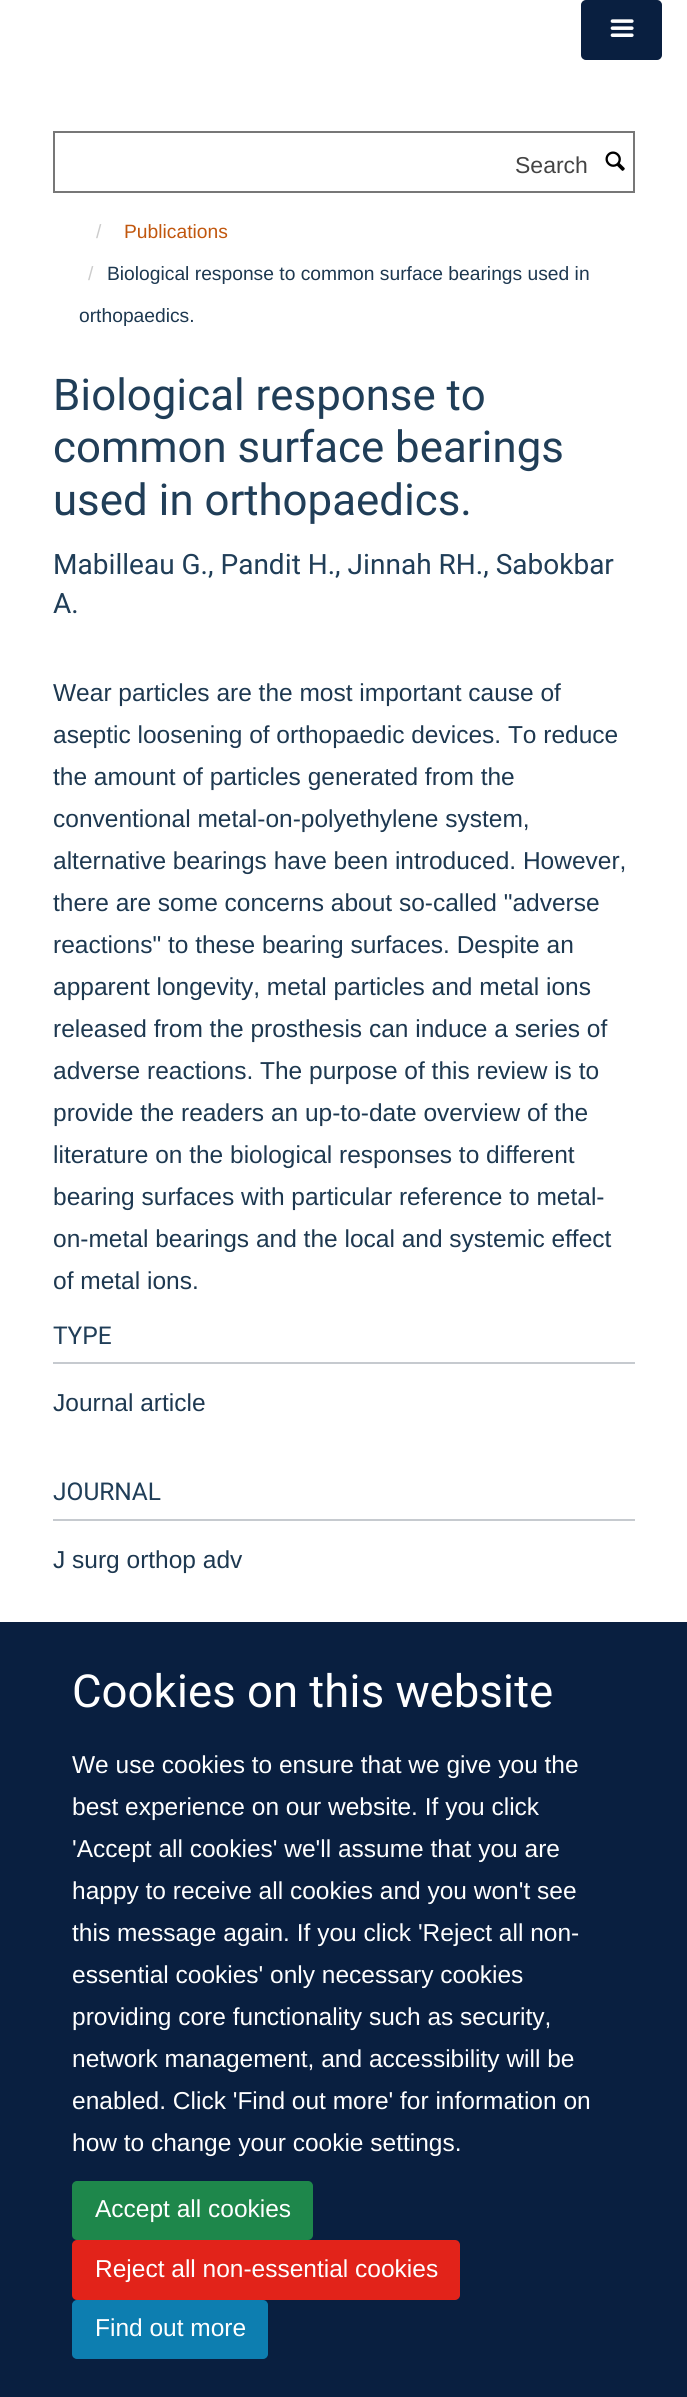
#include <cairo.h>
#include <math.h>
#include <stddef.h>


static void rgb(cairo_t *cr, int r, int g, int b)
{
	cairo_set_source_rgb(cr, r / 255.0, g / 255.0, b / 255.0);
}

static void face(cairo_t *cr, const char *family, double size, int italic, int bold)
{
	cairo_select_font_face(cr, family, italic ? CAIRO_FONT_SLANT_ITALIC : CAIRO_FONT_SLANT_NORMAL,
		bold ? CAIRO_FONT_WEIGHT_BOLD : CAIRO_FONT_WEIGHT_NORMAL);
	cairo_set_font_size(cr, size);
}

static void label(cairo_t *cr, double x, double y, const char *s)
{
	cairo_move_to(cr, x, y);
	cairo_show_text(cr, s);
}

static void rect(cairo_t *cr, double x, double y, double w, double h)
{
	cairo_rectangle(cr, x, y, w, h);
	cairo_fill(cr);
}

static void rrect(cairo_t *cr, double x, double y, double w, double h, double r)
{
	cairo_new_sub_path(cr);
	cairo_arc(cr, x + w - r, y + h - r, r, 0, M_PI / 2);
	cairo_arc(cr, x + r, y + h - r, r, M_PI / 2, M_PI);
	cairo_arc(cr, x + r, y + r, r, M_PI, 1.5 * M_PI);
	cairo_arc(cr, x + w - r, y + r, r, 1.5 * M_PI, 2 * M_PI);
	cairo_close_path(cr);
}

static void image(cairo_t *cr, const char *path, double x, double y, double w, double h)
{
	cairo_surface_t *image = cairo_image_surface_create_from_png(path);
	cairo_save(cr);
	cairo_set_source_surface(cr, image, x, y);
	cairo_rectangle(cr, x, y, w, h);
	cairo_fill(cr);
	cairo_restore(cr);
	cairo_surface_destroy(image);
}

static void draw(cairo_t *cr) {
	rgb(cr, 255, 255, 255);
	cairo_paint(cr);
	rgb(cr, 9, 31, 64);
	rrect(cr, 582, 1, 79, 58, 4);
	cairo_fill_preserve(cr);
	cairo_stroke(cr);
	image(cr, "image0.png", 610, 19, 24, 18);
	cairo_rectangle(cr, 54, 132, 580, 60);
	rgb(cr, 119, 119, 119);
	cairo_stroke(cr);
	face(cr, "Liberation Sans", 23, 0, 0);
	rgb(cr, 68, 68, 68);
	label(cr, 515, 173, "Search");
	image(cr, "image1.png", 605, 151, 20, 20);
	face(cr, "Liberation Sans", 19.25, 0, 0);
	rgb(cr, 204, 204, 204);
	label(cr, 96, 238, "/");
	rgb(cr, 193, 87, 14);
	label(cr, 124, 238, "Publications");
	rgb(cr, 204, 204, 204);
	label(cr, 88, 280, "/");
	rgb(cr, 29, 56, 80);
	label(cr, 107, 280, "Biological response to common surface bearings used in");
	label(cr, 79, 322, "orthopaedics.");
	face(cr, "Heebo", 43.75, 0, 0);
	rgb(cr, 32, 62, 88);
	label(cr, 53, 410, "Biological response to");
	label(cr, 53, 462, "common surface bearings");
	label(cr, 53, 515, "used in orthopaedics.");
	face(cr, "Heebo", 28, 0, 0);
	label(cr, 53, 574, "Mabilleau G., Pandit H., Jinnah RH., Sabokbar");
	label(cr, 53, 613, "A.");
	face(cr, "Liberation Sans", 24.5, 0, 0);
	rgb(cr, 29, 56, 80);
	label(cr, 53, 701, "Wear particles are the most important cause of");
	label(cr, 53, 743, "aseptic loosening of orthopaedic devices. To reduce");
	label(cr, 53, 785, "the amount of particles generated from the");
	label(cr, 53, 827, "conventional metal-on-polyethylene system,");
	label(cr, 53, 869, "alternative bearings have been introduced. However,");
	label(cr, 53, 911, "there are some concerns about so-called \"adverse");
	label(cr, 53, 953, "reactions\" to these bearing surfaces. Despite an");
	label(cr, 53, 995, "apparent longevity, metal particles and metal ions");
	label(cr, 53, 1037, "released from the prosthesis can induce a series of");
	label(cr, 53, 1079, "adverse reactions. The purpose of this review is to");
	label(cr, 53, 1121, "provide the readers an up-to-date overview of the");
	label(cr, 53, 1163, "literature on the biological responses to different");
	label(cr, 53, 1205, "bearing surfaces with particular reference to metal-");
	label(cr, 53, 1247, "on-metal bearings and the local and systemic effect");
	label(cr, 53, 1289, "of metal ions.");
	rgb(cr, 198, 202, 207);
	rect(cr, 53, 1362, 582, 2);
	face(cr, "Heebo", 24.5, 0, 0);
	rgb(cr, 32, 62, 88);
	label(cr, 53, 1344, "TYPE");
	face(cr, "Liberation Sans", 24.5, 0, 0);
	rgb(cr, 29, 56, 80);
	label(cr, 53, 1411, "Journal article");
	rgb(cr, 198, 202, 207);
	rect(cr, 53, 1519, 582, 2);
	face(cr, "Heebo", 24.5, 0, 0);
	rgb(cr, 32, 62, 88);
	label(cr, 53, 1500, "JOURNAL");
	face(cr, "Liberation Sans", 24.5, 0, 0);
	rgb(cr, 29, 56, 80);
	label(cr, 53, 1568, "J surg orthop adv");
	rgb(cr, 9, 31, 64);
	rect(cr, 0, 1622, 687, 775);
	face(cr, "Heebo", 45.5, 0, 0);
	rgb(cr, 255, 255, 255);
	label(cr, 72, 1707, "Cookies on this website");
	face(cr, "Liberation Sans", 24.5, 0, 0);
	label(cr, 72, 1773, "We use cookies to ensure that we give you the");
	label(cr, 72, 1815, "best experience on our website. If you click");
	label(cr, 72, 1857, "'Accept all cookies' we'll assume that you are");
	label(cr, 72, 1899, "happy to receive all cookies and you won't see");
	label(cr, 72, 1941, "this message again. If you click 'Reject all non-");
	label(cr, 72, 1983, "essential cookies' only necessary cookies");
	label(cr, 72, 2025, "providing core functionality such as security,");
	label(cr, 72, 2067, "network management, and accessibility will be");
	label(cr, 72, 2109, "enabled. Click 'Find out more' for information on");
	label(cr, 72, 2151, "how to change your cookie settings.");
	rgb(cr, 30, 135, 75);
	rrect(cr, 73, 2182, 239, 57, 4);
	cairo_fill_preserve(cr);
	cairo_stroke(cr);
	rgb(cr, 255, 255, 255);
	label(cr, 95, 2217, "Accept all cookies");
	rgb(cr, 226, 35, 26);
	rrect(cr, 73, 2241, 386, 58, 4);
	cairo_fill_preserve(cr);
	cairo_stroke(cr);
	rgb(cr, 255, 255, 255);
	label(cr, 95, 2277, "Reject all non-essential cookies");
	rgb(cr, 13, 126, 176);
	rrect(cr, 73, 2301, 194, 57, 4);
	cairo_fill_preserve(cr);
	cairo_stroke(cr);
	rgb(cr, 255, 255, 255);
	label(cr, 95, 2336, "Find out more");
}

int main(void) {
	cairo_surface_t *surface = cairo_image_surface_create(CAIRO_FORMAT_RGB24, 687, 2397);
	cairo_t *cr = cairo_create(surface);
	cairo_font_options_t *options = cairo_font_options_create();
	cairo_font_options_set_hint_metrics(options, CAIRO_HINT_METRICS_OFF);
	cairo_font_options_set_hint_style(options, CAIRO_HINT_STYLE_NONE);
	cairo_set_font_options(cr, options);
	cairo_set_miter_limit(cr, 4);
	draw(cr);
	cairo_surface_write_to_png(surface, "render.png");
	cairo_font_options_destroy(options);
	cairo_destroy(cr);
	cairo_surface_destroy(surface);
	return 0;
}
